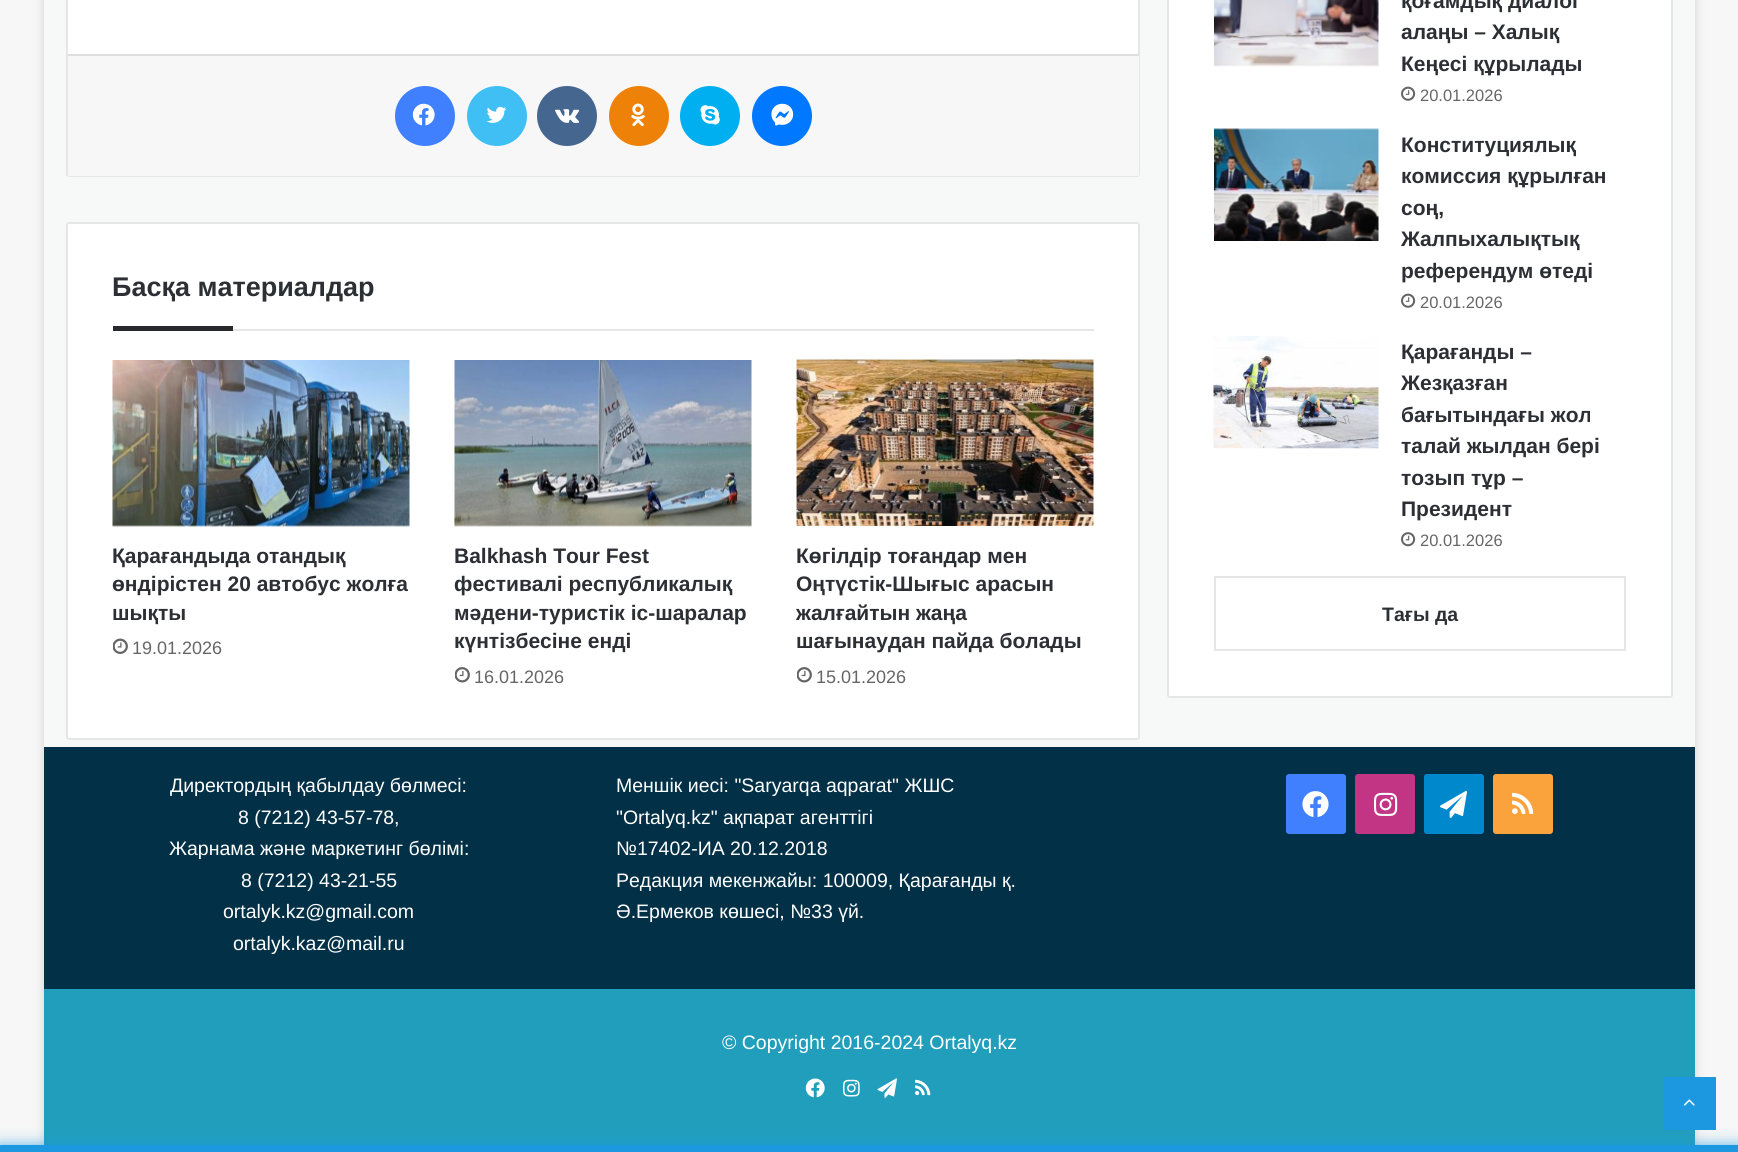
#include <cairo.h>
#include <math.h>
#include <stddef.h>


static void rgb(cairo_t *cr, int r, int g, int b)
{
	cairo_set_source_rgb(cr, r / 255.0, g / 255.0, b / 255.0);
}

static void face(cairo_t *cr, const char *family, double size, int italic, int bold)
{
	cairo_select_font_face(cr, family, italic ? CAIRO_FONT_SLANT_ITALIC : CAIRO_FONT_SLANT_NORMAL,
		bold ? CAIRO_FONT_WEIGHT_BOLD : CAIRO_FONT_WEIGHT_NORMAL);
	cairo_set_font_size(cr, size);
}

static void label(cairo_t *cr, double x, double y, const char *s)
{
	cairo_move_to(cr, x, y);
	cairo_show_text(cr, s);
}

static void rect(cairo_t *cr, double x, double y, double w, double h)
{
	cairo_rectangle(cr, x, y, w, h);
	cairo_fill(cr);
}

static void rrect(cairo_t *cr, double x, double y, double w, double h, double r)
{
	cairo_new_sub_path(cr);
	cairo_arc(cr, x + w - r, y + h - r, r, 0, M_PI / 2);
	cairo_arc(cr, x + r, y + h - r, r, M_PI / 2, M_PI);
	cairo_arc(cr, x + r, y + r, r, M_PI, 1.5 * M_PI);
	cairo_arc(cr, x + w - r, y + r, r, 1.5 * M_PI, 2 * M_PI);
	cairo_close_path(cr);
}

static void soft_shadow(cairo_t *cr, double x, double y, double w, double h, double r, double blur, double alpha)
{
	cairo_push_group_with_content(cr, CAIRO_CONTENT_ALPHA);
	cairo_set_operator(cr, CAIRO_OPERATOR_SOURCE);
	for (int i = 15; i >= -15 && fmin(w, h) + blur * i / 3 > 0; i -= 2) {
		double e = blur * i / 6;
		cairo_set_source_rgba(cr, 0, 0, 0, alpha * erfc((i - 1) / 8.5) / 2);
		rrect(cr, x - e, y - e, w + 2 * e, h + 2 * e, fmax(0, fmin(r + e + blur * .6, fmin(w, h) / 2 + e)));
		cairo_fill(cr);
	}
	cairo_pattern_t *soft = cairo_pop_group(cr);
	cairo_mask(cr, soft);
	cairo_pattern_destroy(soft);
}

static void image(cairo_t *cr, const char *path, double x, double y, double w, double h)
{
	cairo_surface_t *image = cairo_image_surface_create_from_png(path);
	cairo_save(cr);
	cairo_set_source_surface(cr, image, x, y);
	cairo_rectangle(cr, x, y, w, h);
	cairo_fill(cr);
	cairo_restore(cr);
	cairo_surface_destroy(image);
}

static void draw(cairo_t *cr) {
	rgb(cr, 247, 247, 247);
	cairo_paint(cr);
	rgb(cr, 171, 171, 171);
	soft_shadow(cr, 44, -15, 1651, 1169, 0, 5, 0.5);
	rgb(cr, 247, 249, 249);
	rect(cr, 44, 0, 1651, 747);
	rgb(cr, 255, 255, 255);
	rrect(cr, 66, -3, 1074, 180, 3);
	cairo_fill(cr);
	rrect(cr, 67, -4, 1072, 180, 2);
	cairo_set_source_rgba(cr, 0, 0, 0, 0.1);
	cairo_stroke(cr);
	rgb(cr, 247, 247, 247);
	rect(cr, 68, 56, 1071, 120);
	rgb(cr, 222, 222, 222);
	rect(cr, 68, 54, 1071, 2);
	rgb(cr, 64, 128, 255);
	cairo_arc(cr, 425, 116, 30, 0, 2 * M_PI);
	cairo_fill(cr);
	image(cr, "image0.png", 412, 103, 23, 23);
	rgb(cr, 64, 191, 245);
	cairo_arc(cr, 497, 116, 30, 0, 2 * M_PI);
	cairo_fill(cr);
	image(cr, "image1.png", 486, 106, 21, 17);
	rgb(cr, 69, 102, 142);
	cairo_arc(cr, 567, 116, 30, 0, 2 * M_PI);
	cairo_fill(cr);
	image(cr, "image2.png", 555, 109, 25, 14);
	rgb(cr, 238, 130, 8);
	cairo_arc(cr, 639, 116, 30, 0, 2 * M_PI);
	cairo_fill(cr);
	image(cr, "image3.png", 631, 103, 14, 24);
	rgb(cr, 0, 175, 240);
	cairo_arc(cr, 710, 116, 30, 0, 2 * M_PI);
	cairo_fill(cr);
	image(cr, "image4.png", 700, 105, 20, 20);
	rgb(cr, 0, 120, 255);
	cairo_arc(cr, 782, 116, 30, 0, 2 * M_PI);
	cairo_fill(cr);
	image(cr, "image5.png", 771, 103, 23, 23);
	rgb(cr, 255, 255, 255);
	rrect(cr, 66, 222, 1074, 518, 3);
	cairo_fill(cr);
	rrect(cr, 67, 223, 1072, 516, 2);
	cairo_set_source_rgba(cr, 0, 0, 0, 0.1);
	cairo_stroke(cr);
	rgb(cr, 230, 230, 230);
	rect(cr, 233, 329, 861, 2);
	face(cr, "Liberation Sans", 27, 0, 1);
	rgb(cr, 44, 47, 52);
	label(cr, 112, 296, "Басқа материалдар");
	rgb(cr, 39, 41, 45);
	rect(cr, 113, 326, 120, 5);
	image(cr, "image6.png", 112, 360, 298, 167);
	face(cr, "Liberation Sans", 21, 0, 1);
	rgb(cr, 44, 47, 52);
	label(cr, 112, 563, "Қарағандыда отандық");
	label(cr, 112, 591, "өндірістен 20 автобус жолға");
	label(cr, 112, 620, "шықты");
	image(cr, "image7.png", 113, 638, 15, 16);
	face(cr, "Liberation Sans", 18, 0, 0);
	rgb(cr, 102, 102, 102);
	label(cr, 132, 654, "19.01.2026");
	image(cr, "image8.png", 454, 360, 298, 167);
	face(cr, "Liberation Sans", 21, 0, 1);
	rgb(cr, 44, 47, 52);
	label(cr, 454, 563, "Balkhash Tour Fest");
	label(cr, 454, 591, "фестивалі республикалық");
	label(cr, 454, 620, "мәдени-туристік іс-шаралар");
	label(cr, 454, 648, "күнтізбесіне енді");
	image(cr, "image9.png", 455, 667, 15, 16);
	face(cr, "Liberation Sans", 18, 0, 0);
	rgb(cr, 102, 102, 102);
	label(cr, 474, 683, "16.01.2026");
	image(cr, "image10.png", 796, 359, 298, 167);
	face(cr, "Liberation Sans", 21, 0, 1);
	rgb(cr, 44, 47, 52);
	label(cr, 796, 563, "Көгілдір тоғандар мен");
	label(cr, 796, 591, "Оңтүстік-Шығыс арасын");
	label(cr, 796, 620, "жалғайтын жаңа");
	label(cr, 796, 648, "шағынаудан пайда болады");
	image(cr, "image9.png", 797, 667, 15, 16);
	face(cr, "Liberation Sans", 18, 0, 0);
	rgb(cr, 102, 102, 102);
	label(cr, 816, 683, "15.01.2026");
	rgb(cr, 255, 255, 255);
	rrect(cr, 1167, -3, 506, 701, 3);
	cairo_fill(cr);
	rrect(cr, 1168, -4, 504, 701, 2);
	cairo_set_source_rgba(cr, 0, 0, 0, 0.1);
	cairo_stroke(cr);
	image(cr, "image11.png", 1214, 0, 165, 67);
	face(cr, "Liberation Sans", 21, 0, 1);
	rgb(cr, 44, 47, 52);
	label(cr, 1401, 8, "қоғамдық диалог");
	label(cr, 1401, 39, "алаңы – Халық");
	label(cr, 1401, 71, "Кеңесі құрылады");
	image(cr, "image12.png", 1401, 86, 15, 15);
	face(cr, "Liberation Sans", 16.5, 0, 0);
	rgb(cr, 102, 102, 102);
	label(cr, 1420, 101, "20.01.2026");
	image(cr, "image13.png", 1214, 128, 165, 113);
	face(cr, "Liberation Sans", 21, 0, 1);
	rgb(cr, 44, 47, 52);
	label(cr, 1401, 152, "Конституциялық");
	label(cr, 1401, 183, "комиссия құрылған");
	label(cr, 1401, 215, "соң,");
	label(cr, 1401, 246, "Жалпыхалықтық");
	label(cr, 1401, 278, "референдум өтеді");
	image(cr, "image12.png", 1401, 293, 15, 15);
	face(cr, "Liberation Sans", 16.5, 0, 0);
	rgb(cr, 102, 102, 102);
	label(cr, 1420, 308, "20.01.2026");
	image(cr, "image14.png", 1213, 335, 166, 114);
	face(cr, "Liberation Sans", 21, 0, 1);
	rgb(cr, 44, 47, 52);
	label(cr, 1401, 359, "Қарағанды –");
	label(cr, 1401, 390, "Жезқазған");
	label(cr, 1401, 422, "бағытындағы жол");
	label(cr, 1401, 453, "талай жылдан бері");
	label(cr, 1401, 485, "тозып тұр –");
	label(cr, 1401, 516, "Президент");
	image(cr, "image15.png", 1401, 532, 15, 15);
	face(cr, "Liberation Sans", 16.5, 0, 0);
	rgb(cr, 102, 102, 102);
	label(cr, 1420, 546, "20.01.2026");
	cairo_rectangle(cr, 1215, 577, 410, 73);
	rgb(cr, 230, 230, 230);
	cairo_stroke(cr);
	face(cr, "Liberation Sans", 19.5, 0, 1);
	rgb(cr, 44, 47, 52);
	label(cr, 1382, 621, "Тағы да");
	rgb(cr, 2, 48, 71);
	rect(cr, 44, 747, 1651, 242);
	face(cr, "Liberation Sans", 19.5, 0, 0);
	rgb(cr, 255, 255, 255);
	label(cr, 170, 792, "Директордың қабылдау бөлмесі:");
	label(cr, 238, 824, "8 (7212) 43-57-78,");
	label(cr, 169, 855, "Жарнама және маркетинг бөлімі:");
	label(cr, 241, 887, "8 (7212) 43-21-55");
	label(cr, 223, 918, "ortalyk.kz@gmail.com");
	label(cr, 233, 950, "ortalyk.kaz@mail.ru");
	label(cr, 616, 792, "Меншік иесі: \"Saryarqa aqparat\" ЖШС");
	label(cr, 616, 824, "\"Ortalyq.kz\" ақпарат агенттігі");
	label(cr, 616, 855, "№17402-ИА 20.12.2018");
	label(cr, 616, 887, "Редакция мекенжайы: 100009, Қарағанды қ.");
	label(cr, 616, 918, "Ә.Ермеков көшесі, №33 үй.");
	rgb(cr, 64, 128, 255);
	rrect(cr, 1286, 774, 60, 60, 3);
	cairo_fill(cr);
	image(cr, "image16.png", 1302, 791, 27, 27);
	rgb(cr, 193, 53, 132);
	rrect(cr, 1355, 774, 60, 60, 3);
	cairo_fill(cr);
	image(cr, "image17.png", 1374, 792, 24, 24);
	rgb(cr, 0, 136, 204);
	rrect(cr, 1424, 774, 60, 60, 3);
	cairo_fill(cr);
	image(cr, "image18.png", 1440, 790, 27, 28);
	rgb(cr, 250, 163, 61);
	rrect(cr, 1493, 774, 60, 60, 3);
	cairo_fill(cr);
	image(cr, "image19.png", 1512, 792, 22, 23);
	rgb(cr, 33, 158, 188);
	rect(cr, 44, 989, 1651, 156);
	rgb(cr, 255, 255, 255);
	label(cr, 722, 1049, "© Copyright 2016-2024 Ortalyq.kz");
	image(cr, "image20.png", 805, 1078, 20, 20);
	image(cr, "image21.png", 843, 1079, 17, 18);
	image(cr, "image22.png", 877, 1078, 20, 20);
	image(cr, "image23.png", 915, 1079, 16, 17);
	rgb(cr, 27, 152, 224);
	rect(cr, 1664, 1077, 52, 53);
	image(cr, "image24.png", 1683, 1099, 12, 7);
	rgb(cr, 27, 152, 224);
	soft_shadow(cr, 0, 1145, 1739, 7, 0, 7.5, 0.7);
	rgb(cr, 27, 152, 224);
	rect(cr, 0, 1145, 1738, 7);
}

int main(void) {
	cairo_surface_t *surface = cairo_image_surface_create(CAIRO_FORMAT_RGB24, 1738, 1152);
	cairo_t *cr = cairo_create(surface);
	cairo_font_options_t *options = cairo_font_options_create();
	cairo_font_options_set_hint_metrics(options, CAIRO_HINT_METRICS_OFF);
	cairo_font_options_set_hint_style(options, CAIRO_HINT_STYLE_NONE);
	cairo_set_font_options(cr, options);
	cairo_set_miter_limit(cr, 4);
	draw(cr);
	cairo_surface_write_to_png(surface, "render.png");
	cairo_font_options_destroy(options);
	cairo_destroy(cr);
	cairo_surface_destroy(surface);
	return 0;
}
